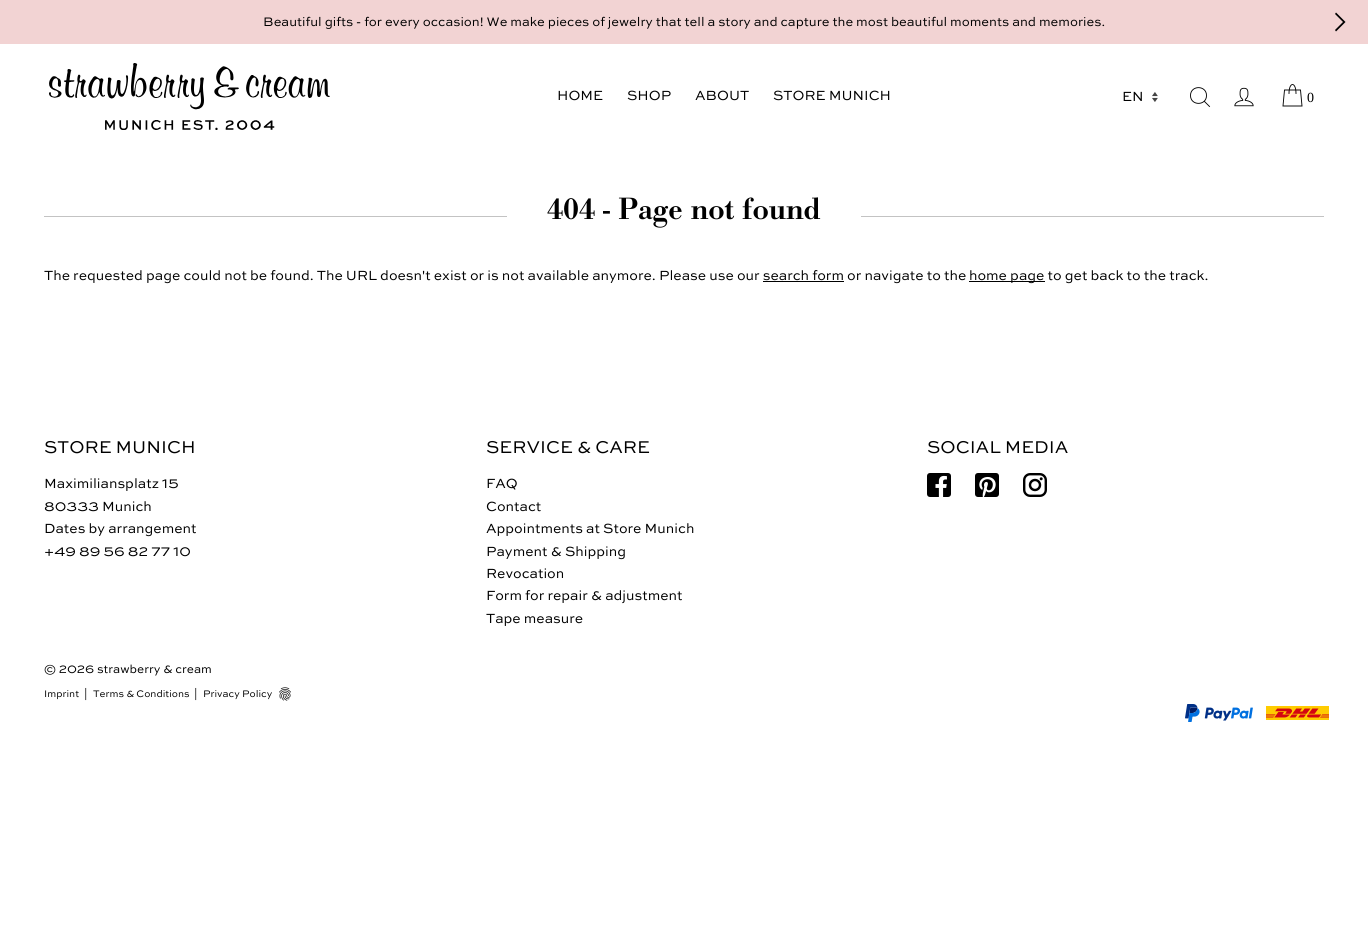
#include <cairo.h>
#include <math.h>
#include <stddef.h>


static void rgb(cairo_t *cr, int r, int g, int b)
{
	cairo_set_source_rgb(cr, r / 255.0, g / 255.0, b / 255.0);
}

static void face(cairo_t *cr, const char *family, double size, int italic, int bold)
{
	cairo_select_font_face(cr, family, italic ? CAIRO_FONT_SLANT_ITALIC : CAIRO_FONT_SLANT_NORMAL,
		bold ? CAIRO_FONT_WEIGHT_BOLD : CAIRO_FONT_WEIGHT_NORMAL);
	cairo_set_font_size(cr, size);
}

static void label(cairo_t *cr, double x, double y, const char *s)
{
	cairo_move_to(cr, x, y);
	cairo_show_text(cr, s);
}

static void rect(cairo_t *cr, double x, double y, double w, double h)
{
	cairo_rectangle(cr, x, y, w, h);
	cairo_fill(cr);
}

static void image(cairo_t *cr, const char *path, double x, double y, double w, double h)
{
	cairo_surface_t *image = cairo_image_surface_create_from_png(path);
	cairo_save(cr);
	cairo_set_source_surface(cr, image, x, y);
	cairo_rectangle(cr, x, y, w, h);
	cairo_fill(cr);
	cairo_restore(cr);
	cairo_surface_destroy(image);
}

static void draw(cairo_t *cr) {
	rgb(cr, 255, 255, 255);
	cairo_paint(cr);
	rgb(cr, 242, 211, 211);
	rect(cr, 0, 0, 1368, 44);
	face(cr, "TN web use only", 13, 0, 0);
	rgb(cr, 0, 0, 0);
	label(cr, 263, 26, "Beautiful gifts - for every occasion! We make pieces of jewelry that tell a story and capture the most beautiful moments and memories.");
	cairo_new_path(cr);
	cairo_move_to(cr, 1336, 31.5);
	cairo_line_to(cr, 1335, 30);
	cairo_line_to(cr, 1343, 22);
	cairo_line_to(cr, 1335, 14);
	cairo_line_to(cr, 1336, 12.5);
	cairo_line_to(cr, 1345.5, 22);
	cairo_close_path(cr);
	cairo_fill(cr);
	image(cr, "image0.png", 49, 63, 281, 67);
	face(cr, "TN web use only", 14, 0, 0);
	label(cr, 557, 100, "HOME");
	label(cr, 627, 100, "SHOP");
	label(cr, 695, 100, "ABOUT");
	label(cr, 773, 100, "STORE MUNICH");
	image(cr, "image1.png", 1152, 92, 6, 10);
	label(cr, 1122, 101, "EN");
	cairo_new_path(cr);
	cairo_move_to(cr, 1206.5, 95.5);
	cairo_curve_to(cr, 1206.5, 106, 1190.5, 106, 1190.5, 95.5);
	cairo_curve_to(cr, 1190.5, 85, 1206.5, 85, 1206.5, 95.5);
	cairo_close_path(cr);
	cairo_move_to(cr, 1209.5, 106.5);
	cairo_line_to(cr, 1204.5, 101.5);
	cairo_set_line_width(cr, 0.9);
	cairo_set_line_cap(cr, CAIRO_LINE_CAP_SQUARE);
	cairo_stroke(cr);
	image(cr, "image2.png", 1234, 87, 20, 20);
	cairo_new_path(cr);
	cairo_move_to(cr, 1289, 93.5);
	cairo_curve_to(cr, 1289, 81.5, 1296, 81.5, 1296, 93.5);
	cairo_move_to(cr, 1284.5, 90);
	cairo_line_to(cr, 1300.5, 90);
	cairo_line_to(cr, 1302, 106);
	cairo_line_to(cr, 1283, 106);
	cairo_close_path(cr);
	cairo_stroke(cr);
	face(cr, "Liberation Serif", 14, 0, 0);
	label(cr, 1307, 102, "0");
	rgb(cr, 195, 195, 195);
	rect(cr, 44, 216, 1280, 1);
	rgb(cr, 255, 255, 255);
	rect(cr, 507, 216, 354, 1);
	face(cr, "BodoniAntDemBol", 32, 0, 0);
	rgb(cr, 0, 0, 0);
	label(cr, 547, 219, "404 - Page not found");
	face(cr, "TN web use only", 14, 0, 0);
	label(cr, 44, 280, "The requested page could not be found. The URL doesn't exist or is not available anymore. Please use our search form or navigate to the");
	rect(cr, 969, 281, 76, 1);
	label(cr, 969, 280, "home page to get back to the track.");
	rect(cr, 763, 281, 81, 1);
	face(cr, "TN web use only", 18, 0, 0);
	label(cr, 44, 453, "STORE MUNICH");
	face(cr, "TN web use only", 14, 0, 0);
	label(cr, 44, 488, "Maximiliansplatz 15");
	label(cr, 44, 511, "80333 Munich");
	label(cr, 44, 533, "Dates by arrangement");
	label(cr, 44, 556, "+49 89 56 82 77 10");
	face(cr, "TN web use only", 18, 0, 0);
	label(cr, 486, 453, "SERVICE & CARE");
	face(cr, "TN web use only", 14, 0, 0);
	label(cr, 486, 488, "FAQ");
	label(cr, 486, 511, "Contact");
	label(cr, 486, 533, "Appointments at Store Munich");
	label(cr, 486, 556, "Payment & Shipping");
	label(cr, 486, 578, "Revocation");
	label(cr, 486, 600, "Form for repair & adjustment");
	label(cr, 486, 623, "Tape measure");
	face(cr, "TN web use only", 18, 0, 0);
	label(cr, 927, 453, "SOCIAL MEDIA");
	image(cr, "image3.png", 927, 473, 24, 24);
	image(cr, "image4.png", 975, 473, 24, 24);
	image(cr, "image5.png", 1023, 473, 24, 24);
	face(cr, "TN web use only", 12, 0, 0);
	label(cr, 44, 673, "© 2026 strawberry & cream");
	face(cr, "TN web use only", 10, 0, 0);
	label(cr, 44, 697, "Imprint");
	label(cr, 84, 697, "|");
	label(cr, 93, 697, "Terms & Conditions");
	label(cr, 194, 697, "|");
	label(cr, 203, 697, "Privacy Policy");
	image(cr, "image6.png", 279, 687, 12, 14);
	image(cr, "image7.png", 1185, 704, 68, 18);
	image(cr, "image8.png", 1266, 706, 63, 14);
}

int main(void) {
	cairo_surface_t *surface = cairo_image_surface_create(CAIRO_FORMAT_RGB24, 1368, 950);
	cairo_t *cr = cairo_create(surface);
	cairo_font_options_t *options = cairo_font_options_create();
	cairo_font_options_set_hint_metrics(options, CAIRO_HINT_METRICS_OFF);
	cairo_font_options_set_hint_style(options, CAIRO_HINT_STYLE_NONE);
	cairo_set_font_options(cr, options);
	cairo_set_miter_limit(cr, 4);
	draw(cr);
	cairo_surface_write_to_png(surface, "render.png");
	cairo_font_options_destroy(options);
	cairo_destroy(cr);
	cairo_surface_destroy(surface);
	return 0;
}
